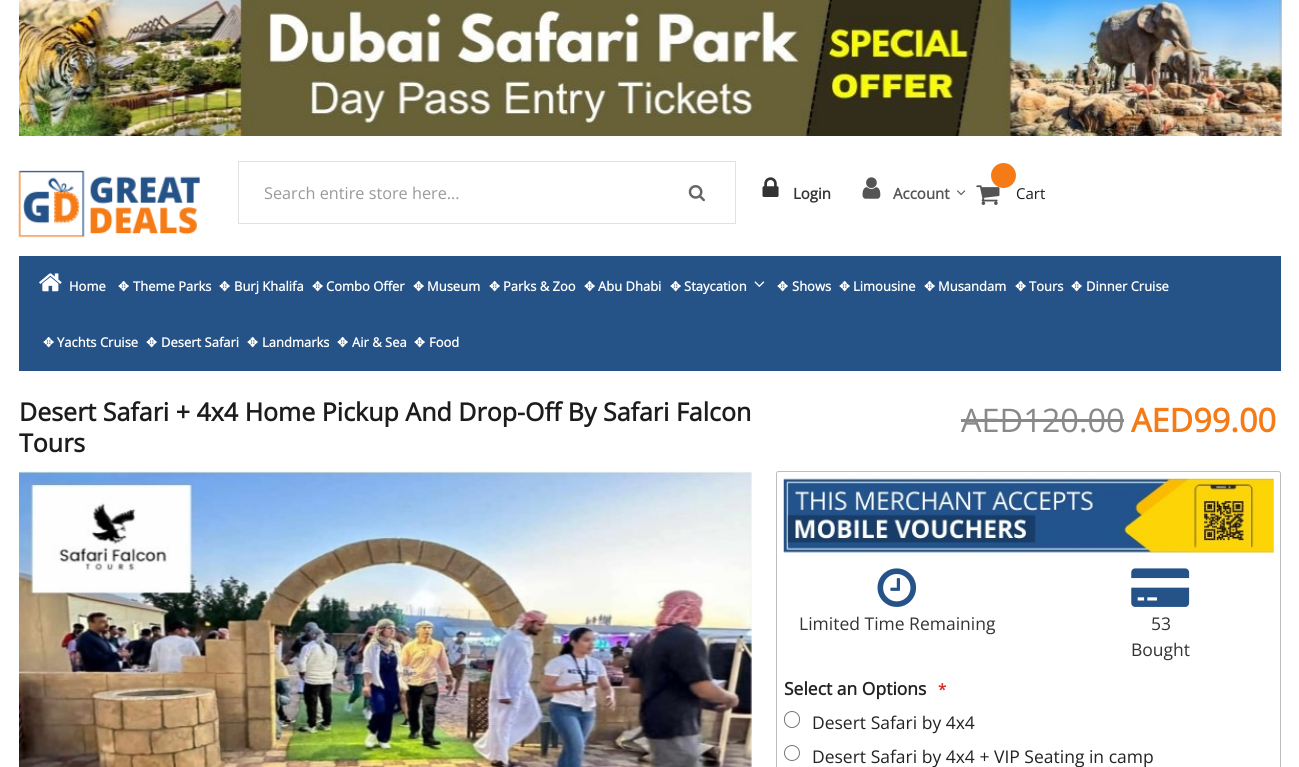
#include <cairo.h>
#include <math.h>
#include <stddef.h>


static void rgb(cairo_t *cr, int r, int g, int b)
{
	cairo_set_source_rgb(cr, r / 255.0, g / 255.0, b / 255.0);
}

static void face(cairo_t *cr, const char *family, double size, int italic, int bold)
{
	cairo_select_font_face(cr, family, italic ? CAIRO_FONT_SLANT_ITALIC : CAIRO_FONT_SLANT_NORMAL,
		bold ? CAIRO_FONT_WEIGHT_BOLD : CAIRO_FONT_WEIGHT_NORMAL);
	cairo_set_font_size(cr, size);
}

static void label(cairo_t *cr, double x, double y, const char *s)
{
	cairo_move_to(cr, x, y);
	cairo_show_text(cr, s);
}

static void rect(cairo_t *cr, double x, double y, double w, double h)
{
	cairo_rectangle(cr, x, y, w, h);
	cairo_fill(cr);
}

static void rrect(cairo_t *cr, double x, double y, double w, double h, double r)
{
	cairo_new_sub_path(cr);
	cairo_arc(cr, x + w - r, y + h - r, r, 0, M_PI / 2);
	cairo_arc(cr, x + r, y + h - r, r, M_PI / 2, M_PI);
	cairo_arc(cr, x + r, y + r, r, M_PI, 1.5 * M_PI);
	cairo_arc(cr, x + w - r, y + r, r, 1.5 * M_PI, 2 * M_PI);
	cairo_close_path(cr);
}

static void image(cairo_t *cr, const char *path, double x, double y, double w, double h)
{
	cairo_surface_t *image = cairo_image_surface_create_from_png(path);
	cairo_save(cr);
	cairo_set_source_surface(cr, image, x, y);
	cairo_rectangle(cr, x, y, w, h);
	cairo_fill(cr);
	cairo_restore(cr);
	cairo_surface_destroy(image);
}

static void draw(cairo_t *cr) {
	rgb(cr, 255, 255, 255);
	cairo_paint(cr);
	image(cr, "image0.png", 19, 0, 1263, 136);
	image(cr, "image1.png", 18, 170, 182, 68);
	rgb(cr, 225, 225, 225);
	rect(cr, 238, 161, 1, 63);
	rect(cr, 239, 161, 497, 1);
	rect(cr, 735, 161, 1, 63);
	rect(cr, 239, 223, 497, 1);
	face(cr, "Open Sans", 16.25, 0, 0);
	rgb(cr, 153, 153, 153);
	label(cr, 264, 199, "Search entire store here...");
	image(cr, "image2.png", 688, 185, 17, 17);
	image(cr, "image3.png", 762, 177, 17, 20);
	face(cr, "Open Sans", 15, 0, 1);
	rgb(cr, 51, 51, 51);
	label(cr, 793, 199, "Login");
	image(cr, "image4.png", 862, 177, 19, 22);
	rgb(cr, 84, 84, 84);
	label(cr, 893, 199, "Account");
	image(cr, "image5.png", 957, 190, 9, 6);
	image(cr, "image6.png", 976, 185, 24, 20);
	rgb(cr, 245, 123, 23);
	cairo_arc(cr, 1003.5, 175.5, 12.5, 0, 2 * M_PI);
	cairo_fill(cr);
	face(cr, "Open Sans", 15, 0, 0);
	rgb(cr, 28, 28, 28);
	label(cr, 1016, 199, "Cart");
	rgb(cr, 37, 83, 135);
	rect(cr, 19, 256, 1262, 115);
	image(cr, "image7.png", 39, 273, 23, 19);
	face(cr, "Open Sans", 13, 0, 1);
	rgb(cr, 255, 255, 255);
	label(cr, 69, 291, "Home");
	face(cr, "DejaVu Sans", 13, 0, 1);
	label(cr, 118, 291, "✥");
	face(cr, "Open Sans", 13, 0, 1);
	label(cr, 133, 291, "Theme Parks");
	face(cr, "DejaVu Sans", 13, 0, 1);
	label(cr, 219, 291, "✥");
	face(cr, "Open Sans", 13, 0, 1);
	label(cr, 234, 291, "Burj Khalifa");
	face(cr, "DejaVu Sans", 13, 0, 1);
	label(cr, 312, 291, "✥");
	face(cr, "Open Sans", 13, 0, 1);
	label(cr, 326, 291, "Combo Offer");
	face(cr, "DejaVu Sans", 13, 0, 1);
	label(cr, 413, 291, "✥");
	face(cr, "Open Sans", 13, 0, 1);
	label(cr, 427, 291, "Museum");
	face(cr, "DejaVu Sans", 13, 0, 1);
	label(cr, 489, 291, "✥");
	face(cr, "Open Sans", 13, 0, 1);
	label(cr, 503, 291, "Parks & Zoo");
	face(cr, "DejaVu Sans", 13, 0, 1);
	label(cr, 584, 291, "✥");
	face(cr, "Open Sans", 13, 0, 1);
	label(cr, 598, 291, "Abu Dhabi");
	face(cr, "DejaVu Sans", 13, 0, 1);
	label(cr, 670, 291, "✥");
	face(cr, "Open Sans", 13, 0, 1);
	label(cr, 684, 291, "Staycation");
	image(cr, "image8.png", 754, 281, 11, 6);
	face(cr, "DejaVu Sans", 13, 0, 1);
	label(cr, 777, 291, "✥");
	face(cr, "Open Sans", 13, 0, 1);
	label(cr, 792, 291, "Shows");
	face(cr, "DejaVu Sans", 13, 0, 1);
	label(cr, 839, 291, "✥");
	face(cr, "Open Sans", 13, 0, 1);
	label(cr, 853, 291, "Limousine");
	face(cr, "DejaVu Sans", 13, 0, 1);
	label(cr, 924, 291, "✥");
	face(cr, "Open Sans", 13, 0, 1);
	label(cr, 938, 291, "Musandam");
	face(cr, "DejaVu Sans", 13, 0, 1);
	label(cr, 1015, 291, "✥");
	face(cr, "Open Sans", 13, 0, 1);
	label(cr, 1029, 291, "Tours");
	face(cr, "DejaVu Sans", 13, 0, 1);
	label(cr, 1071, 291, "✥");
	face(cr, "Open Sans", 13, 0, 1);
	label(cr, 1086, 291, "Dinner Cruise");
	face(cr, "DejaVu Sans", 13, 0, 1);
	label(cr, 43, 347, "✥");
	face(cr, "Open Sans", 13, 0, 1);
	label(cr, 57, 347, "Yachts Cruise");
	face(cr, "DejaVu Sans", 13, 0, 1);
	label(cr, 146, 347, "✥");
	face(cr, "Open Sans", 13, 0, 1);
	label(cr, 161, 347, "Desert Safari");
	face(cr, "DejaVu Sans", 13, 0, 1);
	label(cr, 247, 347, "✥");
	face(cr, "Open Sans", 13, 0, 1);
	label(cr, 262, 347, "Landmarks");
	face(cr, "DejaVu Sans", 13, 0, 1);
	label(cr, 337, 347, "✥");
	face(cr, "Open Sans", 13, 0, 1);
	label(cr, 352, 347, "Air & Sea");
	face(cr, "DejaVu Sans", 13, 0, 1);
	label(cr, 414, 347, "✥");
	face(cr, "Open Sans", 13, 0, 1);
	label(cr, 429, 347, "Food");
	face(cr, "Open Sans", 25, 0, 1);
	rgb(cr, 28, 28, 28);
	label(cr, 19, 421, "Desert Safari + 4x4 Home Pickup And Drop-Off By Safari Falcon");
	label(cr, 19, 452, "Tours");
	face(cr, "Open Sans", 32.5, 0, 0);
	rgb(cr, 137, 137, 137);
	label(cr, 961, 432, "AED120.00");
	rect(cr, 961, 419, 163, 3);
	face(cr, "Open Sans", 32.5, 0, 1);
	rgb(cr, 245, 123, 23);
	label(cr, 1131, 432, "AED99.00");
	image(cr, "image9.png", 19, 471, 733, 296);
	rrect(cr, 776.5, 471.5, 504, 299, 2);
	rgb(cr, 189, 189, 189);
	cairo_set_line_width(cr, 1);
	cairo_stroke(cr);
	image(cr, "image10.png", 783, 478, 491, 75);
	image(cr, "image11.png", 877, 568, 40, 39);
	face(cr, "Open Sans", 17.5, 0, 0);
	rgb(cr, 51, 51, 51);
	label(cr, 799, 630, "Limited Time Remaining");
	image(cr, "image12.png", 1131, 568, 59, 39);
	label(cr, 1151, 630, "53");
	label(cr, 1131, 656, "Bought");
	face(cr, "Open Sans", 17.5, 0, 1);
	rgb(cr, 34, 34, 34);
	label(cr, 784, 695, "Select an Options");
	face(cr, "Open Sans", 15, 0, 1);
	rgb(cr, 224, 43, 39);
	label(cr, 938, 695, "*");
	rrect(cr, 784.5, 711.5, 15, 16, 7.5);
	rgb(cr, 118, 118, 118);
	cairo_stroke(cr);
	face(cr, "Open Sans", 17.5, 0, 0);
	rgb(cr, 34, 34, 34);
	label(cr, 812, 729, "Desert Safari by 4x4");
	cairo_new_path(cr);
	cairo_arc(cr, 792, 753, 7.5, 0, 2 * M_PI);
	rgb(cr, 118, 118, 118);
	cairo_stroke(cr);
	rgb(cr, 34, 34, 34);
	label(cr, 812, 763, "Desert Safari by 4x4 + VIP Seating in camp");
}

int main(void) {
	cairo_surface_t *surface = cairo_image_surface_create(CAIRO_FORMAT_RGB24, 1299, 767);
	cairo_t *cr = cairo_create(surface);
	cairo_font_options_t *options = cairo_font_options_create();
	cairo_font_options_set_hint_metrics(options, CAIRO_HINT_METRICS_OFF);
	cairo_font_options_set_hint_style(options, CAIRO_HINT_STYLE_NONE);
	cairo_set_font_options(cr, options);
	cairo_set_miter_limit(cr, 4);
	draw(cr);
	cairo_surface_write_to_png(surface, "render.png");
	cairo_font_options_destroy(options);
	cairo_destroy(cr);
	cairo_surface_destroy(surface);
	return 0;
}
